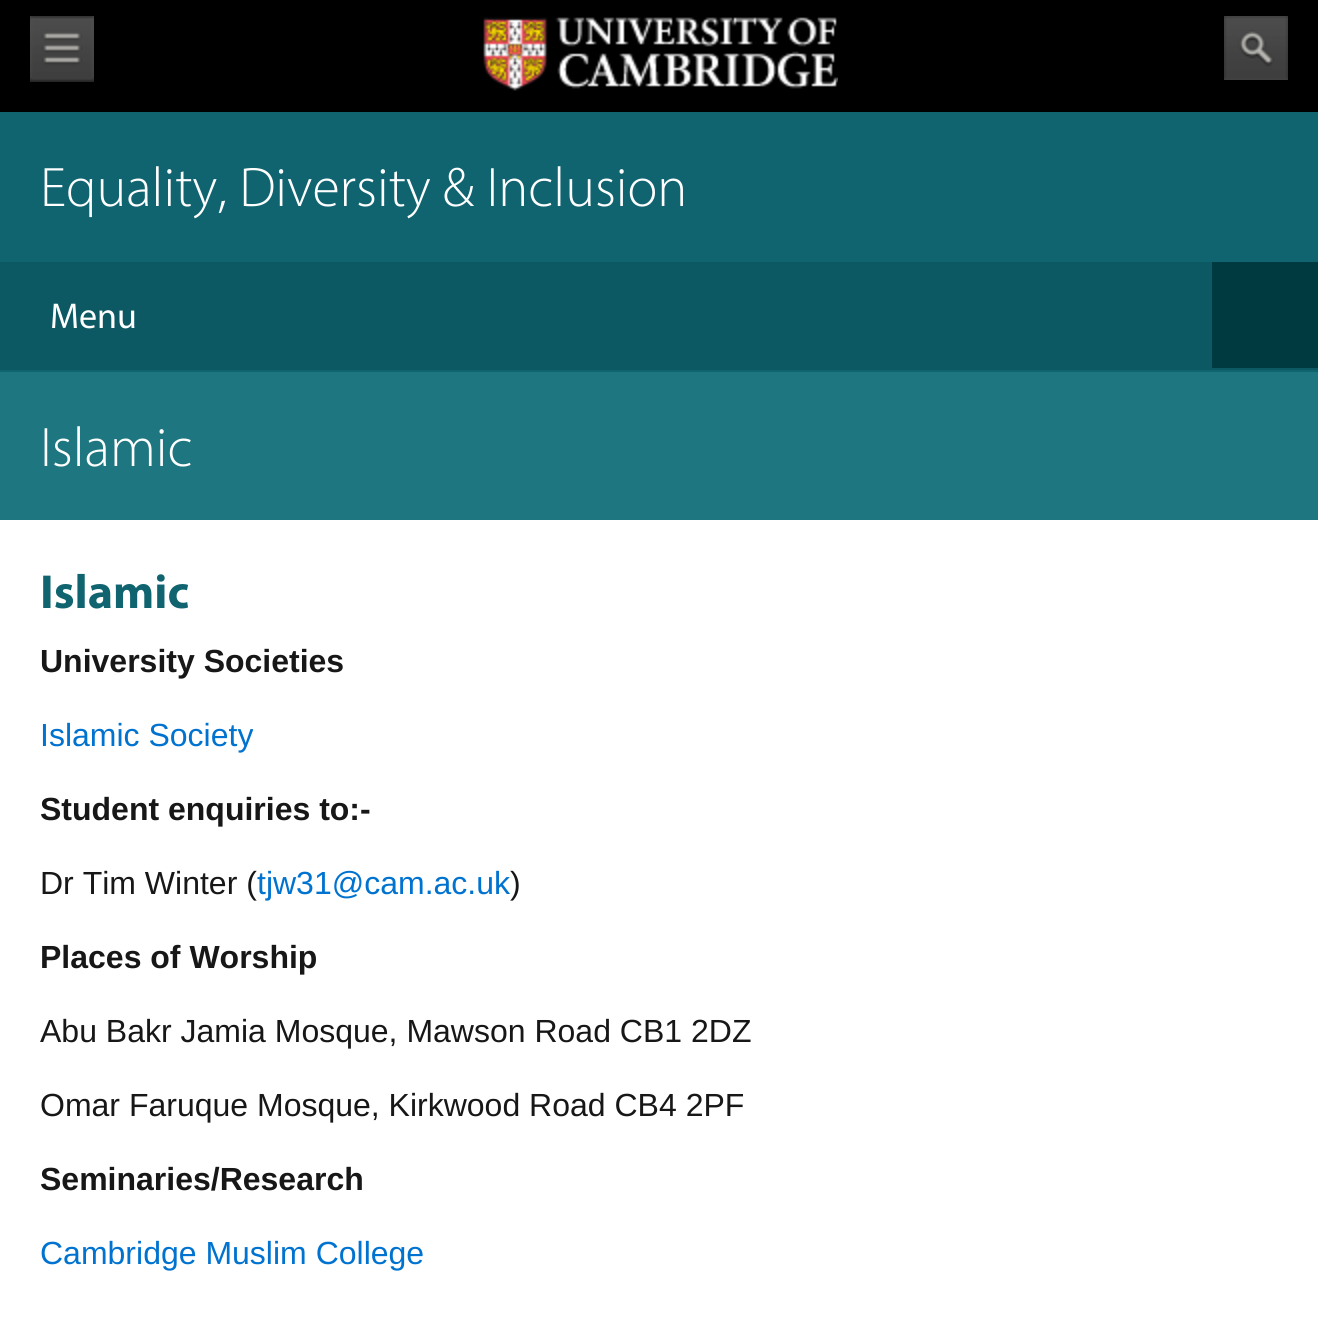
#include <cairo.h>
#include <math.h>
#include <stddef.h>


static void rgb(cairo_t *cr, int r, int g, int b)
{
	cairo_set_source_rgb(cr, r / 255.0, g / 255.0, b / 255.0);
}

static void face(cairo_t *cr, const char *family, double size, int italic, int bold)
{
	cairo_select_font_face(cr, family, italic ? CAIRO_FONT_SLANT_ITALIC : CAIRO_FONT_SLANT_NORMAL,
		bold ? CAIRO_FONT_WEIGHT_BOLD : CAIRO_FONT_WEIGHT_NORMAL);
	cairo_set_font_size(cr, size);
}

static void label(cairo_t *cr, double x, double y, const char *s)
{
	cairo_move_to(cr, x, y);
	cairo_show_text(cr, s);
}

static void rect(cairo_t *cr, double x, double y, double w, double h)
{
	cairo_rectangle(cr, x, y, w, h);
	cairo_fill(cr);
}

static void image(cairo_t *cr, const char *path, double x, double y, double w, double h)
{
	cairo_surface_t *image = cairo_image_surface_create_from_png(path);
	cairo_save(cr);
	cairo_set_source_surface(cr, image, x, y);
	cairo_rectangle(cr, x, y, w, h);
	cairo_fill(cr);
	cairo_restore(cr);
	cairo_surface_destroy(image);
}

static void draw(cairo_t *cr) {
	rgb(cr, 0, 0, 0);
	cairo_paint(cr);
	image(cr, "image0.png", 30, 16, 64, 66);
	image(cr, "image1.png", 483, 17, 355, 74);
	image(cr, "image2.png", 1224, 16, 64, 64);
	rgb(cr, 16, 100, 112);
	rect(cr, 0, 112, 1318, 150);
	face(cr, "Myriad Light", 56, 0, 0);
	rgb(cr, 255, 255, 255);
	label(cr, 40, 206, "Equality, Diversity & Inclusion");
	rgb(cr, 12, 89, 99);
	rect(cr, 0, 262, 1318, 108);
	rgb(cr, 16, 100, 112);
	rect(cr, 0, 370, 1318, 2);
	face(cr, "Myriad", 36, 0, 0);
	rgb(cr, 255, 255, 255);
	label(cr, 50, 328, "Menu");
	rgb(cr, 0, 58, 65);
	rect(cr, 1212, 262, 106, 106);
	rgb(cr, 30, 118, 128);
	rect(cr, 0, 372, 1318, 148);
	face(cr, "Myriad Light", 56, 0, 0);
	rgb(cr, 255, 255, 255);
	label(cr, 40, 466, "Islamic");
	rect(cr, 0, 520, 1318, 798);
	face(cr, "Myriad", 48, 0, 1);
	rgb(cr, 16, 100, 112);
	label(cr, 40, 608, "Islamic");
	face(cr, "Liberation Sans", 32, 0, 1);
	rgb(cr, 23, 23, 23);
	label(cr, 40, 672, "University Societies");
	face(cr, "Liberation Sans", 32, 0, 0);
	rgb(cr, 0, 114, 207);
	label(cr, 40, 746, "Islamic Society");
	face(cr, "Liberation Sans", 32, 0, 1);
	rgb(cr, 23, 23, 23);
	label(cr, 40, 820, "Student enquiries to:-");
	face(cr, "Liberation Sans", 32, 0, 0);
	label(cr, 40, 894, "Dr Tim Winter (");
	rgb(cr, 0, 114, 207);
	label(cr, 257, 894, "tjw31@cam.ac.uk");
	rgb(cr, 23, 23, 23);
	label(cr, 510, 894, ")");
	face(cr, "Liberation Sans", 32, 0, 1);
	label(cr, 40, 968, "Places of Worship");
	face(cr, "Liberation Sans", 32, 0, 0);
	label(cr, 40, 1042, "Abu Bakr Jamia Mosque, Mawson Road CB1 2DZ");
	label(cr, 40, 1116, "Omar Faruque Mosque, Kirkwood Road CB4 2PF");
	face(cr, "Liberation Sans", 32, 0, 1);
	label(cr, 40, 1190, "Seminaries/Research");
	face(cr, "Liberation Sans", 32, 0, 0);
	rgb(cr, 0, 114, 207);
	label(cr, 40, 1264, "Cambridge Muslim College");
}

int main(void) {
	cairo_surface_t *surface = cairo_image_surface_create(CAIRO_FORMAT_RGB24, 1318, 1318);
	cairo_t *cr = cairo_create(surface);
	cairo_font_options_t *options = cairo_font_options_create();
	cairo_font_options_set_hint_metrics(options, CAIRO_HINT_METRICS_OFF);
	cairo_font_options_set_hint_style(options, CAIRO_HINT_STYLE_NONE);
	cairo_set_font_options(cr, options);
	cairo_set_miter_limit(cr, 4);
	draw(cr);
	cairo_surface_write_to_png(surface, "render.png");
	cairo_font_options_destroy(options);
	cairo_destroy(cr);
	cairo_surface_destroy(surface);
	return 0;
}
